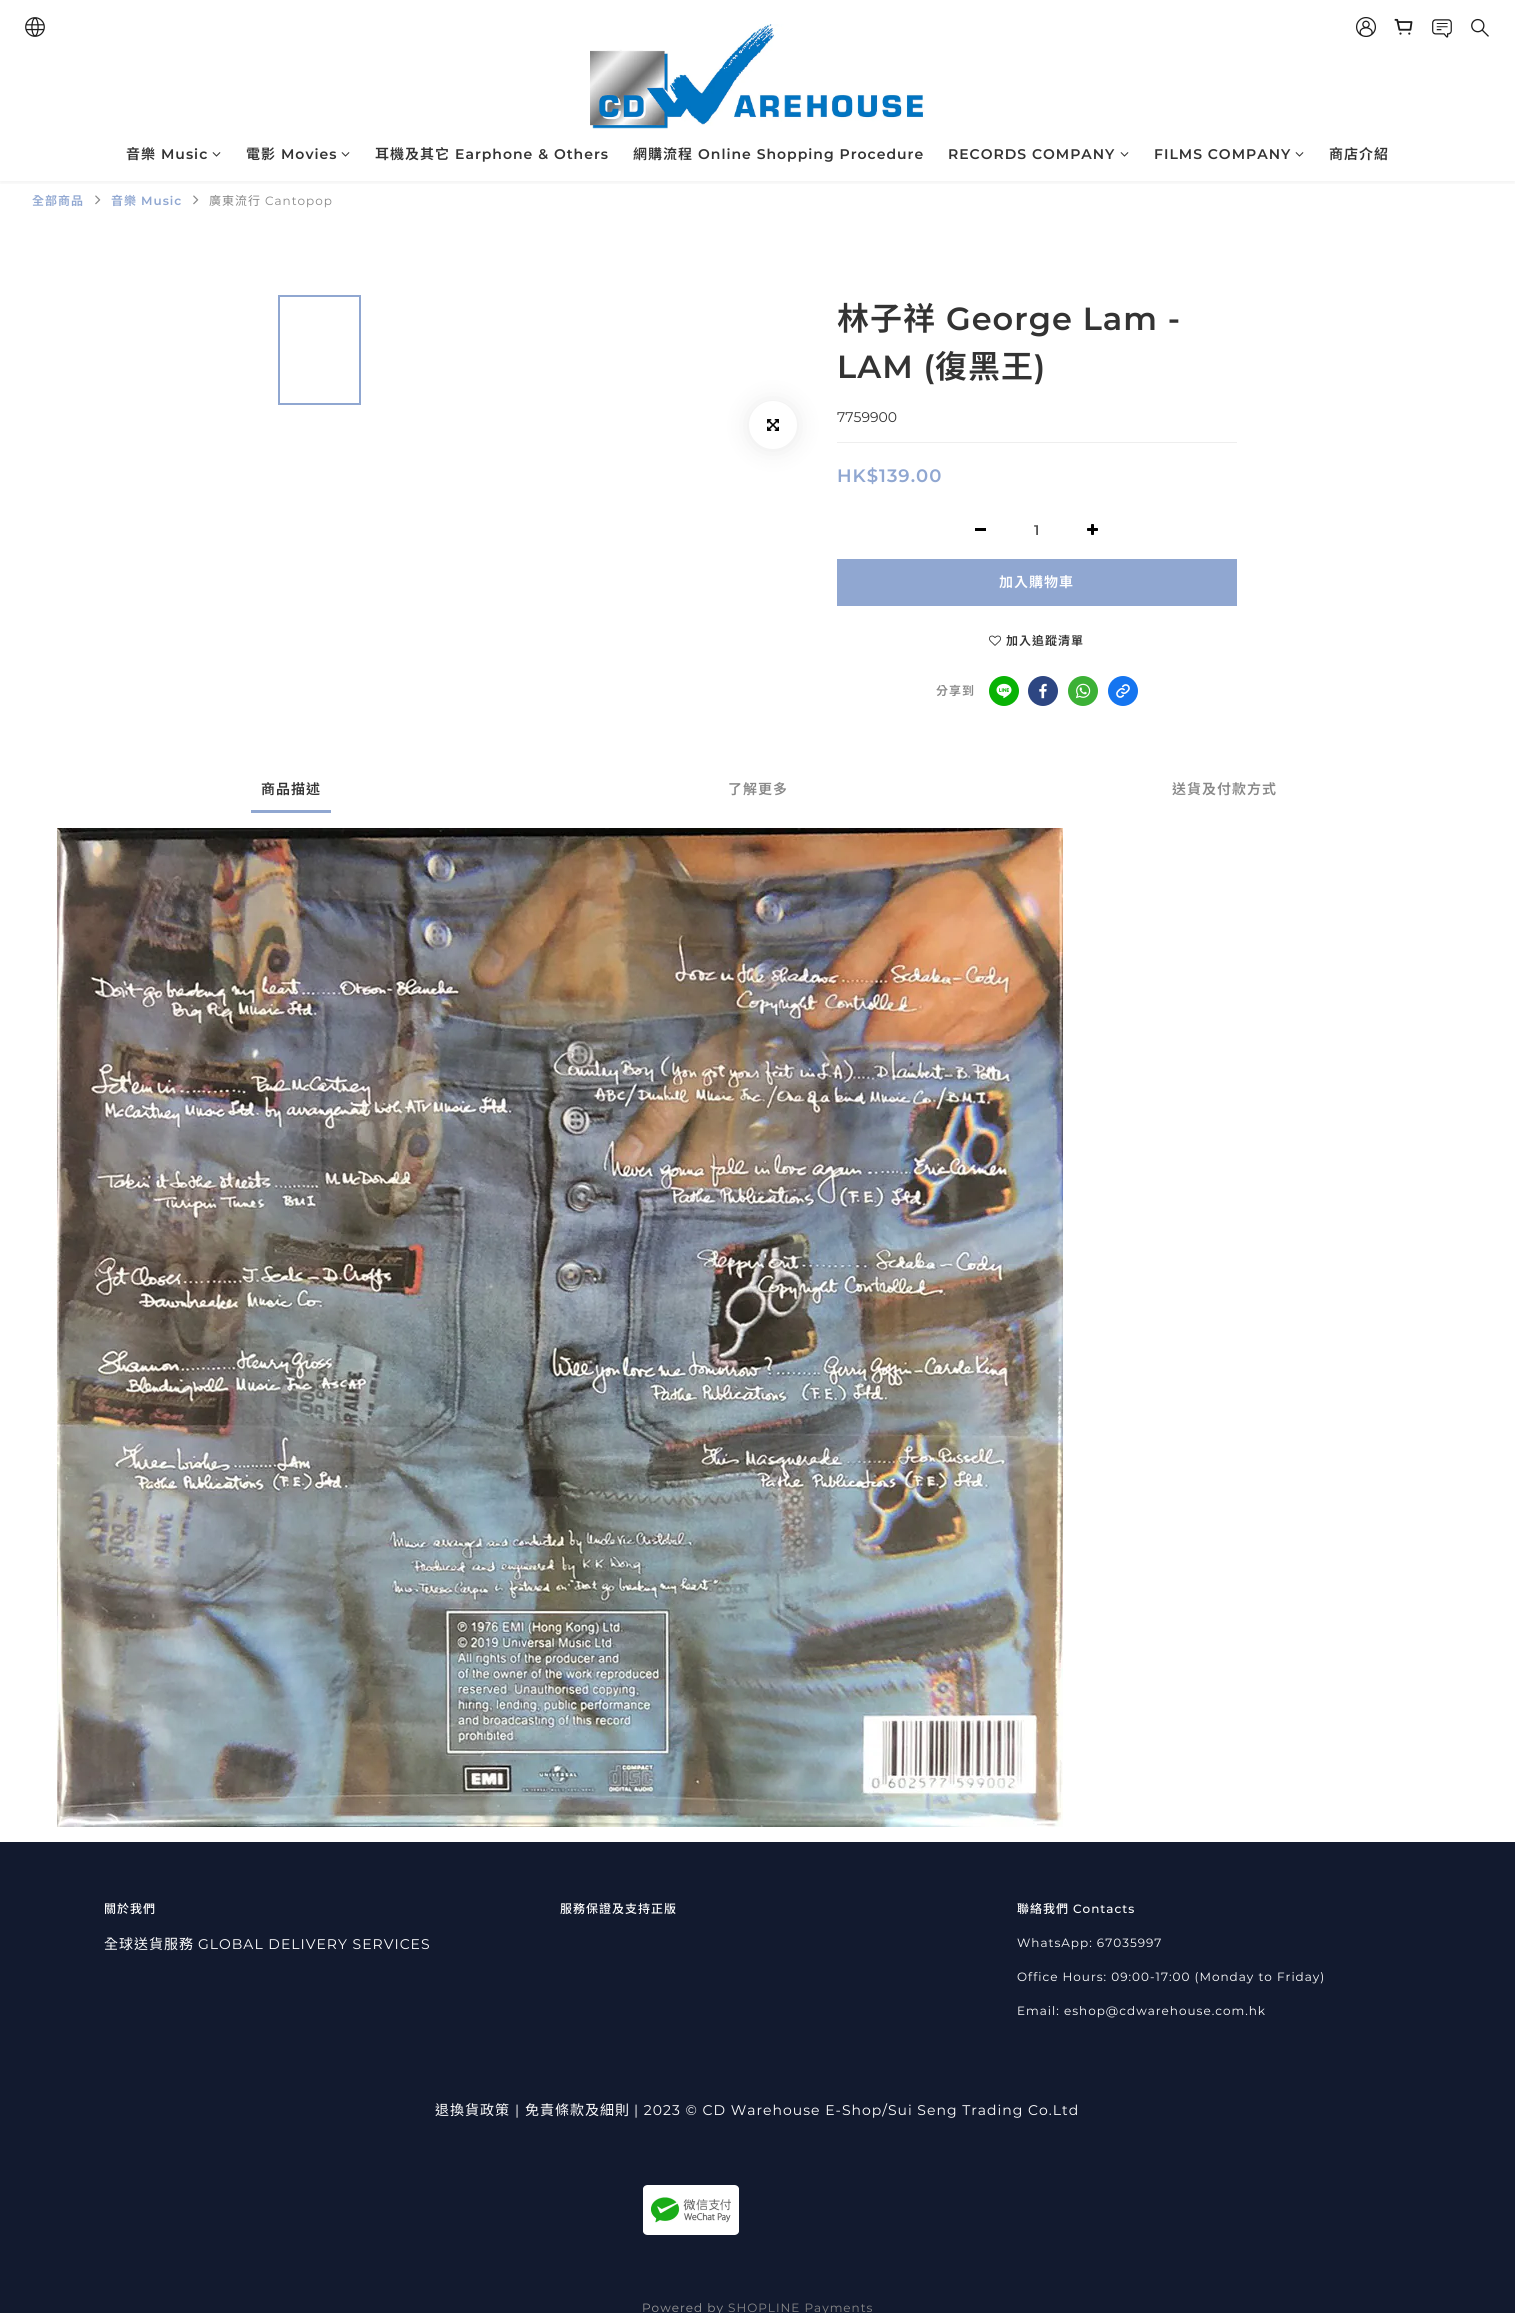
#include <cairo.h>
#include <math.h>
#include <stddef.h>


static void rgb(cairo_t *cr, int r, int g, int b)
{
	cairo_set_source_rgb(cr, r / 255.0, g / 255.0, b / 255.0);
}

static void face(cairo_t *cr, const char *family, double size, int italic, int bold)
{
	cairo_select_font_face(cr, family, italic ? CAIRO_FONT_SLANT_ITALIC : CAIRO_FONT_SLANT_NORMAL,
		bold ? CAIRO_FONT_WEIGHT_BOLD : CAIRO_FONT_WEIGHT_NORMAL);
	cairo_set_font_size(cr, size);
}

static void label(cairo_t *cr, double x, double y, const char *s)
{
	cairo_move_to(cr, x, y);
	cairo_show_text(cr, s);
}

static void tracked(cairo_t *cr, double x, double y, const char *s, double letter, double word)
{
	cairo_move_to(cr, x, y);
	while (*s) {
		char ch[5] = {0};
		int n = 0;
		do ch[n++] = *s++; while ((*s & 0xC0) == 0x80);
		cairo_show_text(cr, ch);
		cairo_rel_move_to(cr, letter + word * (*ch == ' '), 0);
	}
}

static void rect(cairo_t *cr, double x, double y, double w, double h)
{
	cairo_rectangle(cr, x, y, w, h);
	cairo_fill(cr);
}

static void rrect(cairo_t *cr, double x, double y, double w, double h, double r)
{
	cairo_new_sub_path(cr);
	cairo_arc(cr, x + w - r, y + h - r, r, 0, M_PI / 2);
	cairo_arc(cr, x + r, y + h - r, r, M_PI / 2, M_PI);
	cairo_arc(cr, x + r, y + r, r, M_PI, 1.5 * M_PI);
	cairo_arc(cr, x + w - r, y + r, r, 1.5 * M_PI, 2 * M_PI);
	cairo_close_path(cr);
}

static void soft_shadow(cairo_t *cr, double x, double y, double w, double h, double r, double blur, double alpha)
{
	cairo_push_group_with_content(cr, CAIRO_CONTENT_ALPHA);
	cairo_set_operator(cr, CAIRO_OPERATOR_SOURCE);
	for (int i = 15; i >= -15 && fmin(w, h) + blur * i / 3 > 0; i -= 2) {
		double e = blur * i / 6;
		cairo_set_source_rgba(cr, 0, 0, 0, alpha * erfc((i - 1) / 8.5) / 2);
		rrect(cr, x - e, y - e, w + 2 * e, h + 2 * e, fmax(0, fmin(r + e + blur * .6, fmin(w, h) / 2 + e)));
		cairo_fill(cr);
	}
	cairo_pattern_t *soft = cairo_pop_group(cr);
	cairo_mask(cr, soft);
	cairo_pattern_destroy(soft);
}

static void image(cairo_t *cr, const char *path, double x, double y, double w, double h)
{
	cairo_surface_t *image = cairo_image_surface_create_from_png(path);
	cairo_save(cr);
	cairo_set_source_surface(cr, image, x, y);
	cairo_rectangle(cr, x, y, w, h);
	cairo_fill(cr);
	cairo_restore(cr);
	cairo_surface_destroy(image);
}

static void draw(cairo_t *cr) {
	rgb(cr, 255, 255, 255);
	cairo_paint(cr);
	cairo_save(cr);
	cairo_rectangle(cr, 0, 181, 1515, 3);
	cairo_clip(cr);
	rgb(cr, 0, 0, 0);
	soft_shadow(cr, 0, 2, 1515, 181, 0, 3, 0.06);
	cairo_restore(cr);
	image(cr, "image0.png", 25, 17, 20, 20);
	image(cr, "image1.png", 1356, 17, 20, 20);
	image(cr, "image2.png", 1394, 18, 19, 17);
	image(cr, "image3.png", 1432, 19, 20, 19);
	image(cr, "image4.png", 1471, 18, 18, 19);
	image(cr, "image5.png", 590, 24, 335, 105);
	face(cr, "Noto Sans TC SemiBold", 14, 0, 0);
	rgb(cr, 51, 51, 51);
	tracked(cr, 126, 159, "音樂", 1, 0);
	face(cr, "Montserrat SemiBold", 14, 0, 0);
	tracked(cr, 161, 159, "Music", 1, 0);
	image(cr, "image6.png", 212, 152, 9, 5);
	face(cr, "Noto Sans TC SemiBold", 14, 0, 0);
	tracked(cr, 246, 159, "電影", 1, 0);
	face(cr, "Montserrat SemiBold", 14, 0, 0);
	tracked(cr, 281, 159, "Movies", 1, 0);
	image(cr, "image6.png", 341, 152, 9, 5);
	face(cr, "Noto Sans TC SemiBold", 14, 0, 0);
	tracked(cr, 375, 159, "耳機及其它", 1, 0);
	face(cr, "Montserrat SemiBold", 14, 0, 0);
	tracked(cr, 455, 159, "Earphone & Others", 1, 0);
	face(cr, "Noto Sans TC SemiBold", 14, 0, 0);
	tracked(cr, 633, 159, "網購流程", 1, 0);
	face(cr, "Montserrat SemiBold", 14, 0, 0);
	tracked(cr, 698, 159, "Online Shopping Procedure", 1, 0);
	tracked(cr, 948, 159, "RECORDS COMPANY", 1, 0);
	image(cr, "image6.png", 1120, 152, 9, 5);
	tracked(cr, 1154, 159, "FILMS COMPANY", 1, 0);
	image(cr, "image6.png", 1295, 152, 9, 5);
	face(cr, "Noto Sans TC SemiBold", 14, 0, 0);
	tracked(cr, 1329, 159, "商店介紹", 1, 0);
	face(cr, "Noto Sans TC SemiBold", 12, 0, 0);
	rgb(cr, 144, 167, 209);
	tracked(cr, 32, 205, "全部商品", 1, 0);
	image(cr, "image7.png", 95, 195, 6, 10);
	tracked(cr, 111, 205, "音樂", 1, 0);
	face(cr, "Montserrat SemiBold", 12, 0, 0);
	tracked(cr, 141, 205, "Music", 1, 0);
	image(cr, "image7.png", 193, 195, 6, 10);
	face(cr, "Noto Sans TC", 12, 0, 0);
	rgb(cr, 136, 136, 136);
	tracked(cr, 209, 205, "廣東流行", 1, 0);
	face(cr, "Montserrat", 12, 0, 0);
	tracked(cr, 265, 205, "Cantopop", 1, 0);
	cairo_rectangle(cr, 279, 296, 81, 108);
	rgb(cr, 144, 167, 209);
	cairo_stroke(cr);
	rgb(cr, 0, 0, 0);
	soft_shadow(cr, 749, 402, 48, 48, 24, 12, 0.09);
	rgb(cr, 255, 255, 255);
	cairo_arc(cr, 773, 425, 24, 0, 2 * M_PI);
	cairo_fill(cr);
	image(cr, "image8.png", 767, 419, 12, 12);
	face(cr, "Noto Sans TC SemiBold", 32, 0, 0);
	rgb(cr, 51, 51, 51);
	tracked(cr, 837, 330, "林子祥", 1, 0);
	face(cr, "Montserrat SemiBold", 32, 0, 0);
	tracked(cr, 946, 330, "George Lam -", 1, 0);
	tracked(cr, 837, 378, "LAM (", 1, 0);
	face(cr, "Noto Sans TC SemiBold", 32, 0, 0);
	tracked(cr, 935, 378, "復黑王", 1, 0);
	face(cr, "Montserrat SemiBold", 32, 0, 0);
	tracked(cr, 1034, 378, ")", 1, 0);
	face(cr, "Montserrat", 14, 0, 0);
	label(cr, 837, 422, "7759900");
	rgb(cr, 238, 238, 238);
	rect(cr, 837, 442, 400, 1);
	face(cr, "Montserrat SemiBold", 18, 0, 0);
	rgb(cr, 144, 167, 209);
	tracked(cr, 837, 482, "HK$139.00", 1, 0);
	rgb(cr, 0, 0, 0);
	rect(cr, 975, 528, 11, 3);
	face(cr, "Montserrat SemiBold", 14, 0, 0);
	rgb(cr, 85, 85, 85);
	tracked(cr, 1034, 535, "1", 1, 0);
	image(cr, "image9.png", 1087, 524, 11, 11);
	rgb(cr, 144, 167, 209);
	rect(cr, 837, 559, 400, 47);
	face(cr, "Noto Sans TC SemiBold", 14, 0, 0);
	rgb(cr, 255, 255, 255);
	tracked(cr, 999, 587, "加入購物車", 1, 0);
	image(cr, "image10.png", 989, 635, 12, 11);
	face(cr, "Noto Sans TC SemiBold", 12, 0, 0);
	rgb(cr, 51, 51, 51);
	tracked(cr, 1006, 645, "加入追蹤清單", 1, 0);
	rgb(cr, 136, 136, 136);
	tracked(cr, 936, 695, "分享到", 1, 0);
	rgb(cr, 9, 179, 5);
	cairo_new_path(cr);
	cairo_arc(cr, 1004, 691, 15, 0, 2 * M_PI);
	cairo_fill(cr);
	image(cr, "image11.png", 996, 683, 16, 16);
	rgb(cr, 45, 70, 130);
	cairo_arc(cr, 1043, 691, 15, 0, 2 * M_PI);
	cairo_fill(cr);
	image(cr, "image12.png", 1039, 683, 8, 16);
	rgb(cr, 60, 177, 54);
	cairo_arc(cr, 1083, 691, 15, 0, 2 * M_PI);
	cairo_fill(cr);
	image(cr, "image13.png", 1075, 683, 16, 16);
	rgb(cr, 21, 117, 240);
	cairo_arc(cr, 1123, 691, 15, 0, 2 * M_PI);
	cairo_fill(cr);
	image(cr, "image14.png", 1116, 684, 14, 14);
	face(cr, "Noto Sans TC SemiBold", 14, 0, 0);
	rgb(cr, 51, 51, 51);
	tracked(cr, 261, 794, "商品描述", 1, 0);
	rgb(cr, 144, 167, 209);
	rect(cr, 251, 810, 80, 3);
	rgb(cr, 136, 136, 136);
	tracked(cr, 728, 794, "了解更多", 1, 0);
	tracked(cr, 1172, 794, "送貨及付款方式", 1, 0);
	image(cr, "image15.png", 57, 828, 1006, 999);
	rgb(cr, 18, 26, 47);
	rect(cr, 0, 1842, 1515, 471);
	face(cr, "Noto Sans TC Medium", 12, 0, 0);
	rgb(cr, 255, 255, 255);
	tracked(cr, 104, 1913, "關於我們", 1, 0);
	face(cr, "Noto Sans TC", 14, 0, 0);
	tracked(cr, 104, 1949, "全球送貨服務", 1, 0);
	face(cr, "Montserrat", 14, 0, 0);
	tracked(cr, 198, 1949, "GLOBAL DELIVERY SERVICES", 1, 0);
	face(cr, "Noto Sans TC Medium", 12, 0, 0);
	tracked(cr, 560, 1913, "服務保證及支持正版", 1, 0);
	tracked(cr, 1017, 1913, "聯絡我們", 1, 0);
	face(cr, "Montserrat Medium", 12, 0, 0);
	tracked(cr, 1073, 1913, "Contacts", 1, 0);
	face(cr, "Montserrat", 12, 0, 0);
	tracked(cr, 1017, 1947, "WhatsApp: 67035997", 1, 0);
	tracked(cr, 1017, 1981, "Office Hours: 09:00-17:00 (Monday to Friday)", 1, 0);
	tracked(cr, 1017, 2015, "Email: eshop@cdwarehouse.com.hk", 1, 0);
	face(cr, "Noto Sans TC", 14, 0, 0);
	tracked(cr, 435, 2115, "退換貨政策", 1, 0);
	face(cr, "Montserrat", 14, 0, 0);
	tracked(cr, 515, 2115, "|", 1, 0);
	face(cr, "Noto Sans TC", 14, 0, 0);
	tracked(cr, 525, 2115, "免責條款及細則", 1, 0);
	face(cr, "Montserrat", 14, 0, 0);
	tracked(cr, 634, 2115, "| 2023 © CD Warehouse E-Shop/Sui Seng Trading Co.Ltd", 1, 0);
	image(cr, "image16.png", 643, 2185, 96, 50);
	face(cr, "Montserrat", 12, 0, 0);
	rgb(cr, 153, 153, 153);
	tracked(cr, 642, 2312, "Powered by", 1, 0);
	rgb(cr, 136, 136, 136);
	tracked(cr, 728, 2312, "SHOPLINE Payments", 1, 0);
}

int main(void) {
	cairo_surface_t *surface = cairo_image_surface_create(CAIRO_FORMAT_RGB24, 1515, 2313);
	cairo_t *cr = cairo_create(surface);
	cairo_font_options_t *options = cairo_font_options_create();
	cairo_font_options_set_hint_metrics(options, CAIRO_HINT_METRICS_OFF);
	cairo_font_options_set_hint_style(options, CAIRO_HINT_STYLE_NONE);
	cairo_set_font_options(cr, options);
	cairo_set_miter_limit(cr, 4);
	draw(cr);
	cairo_surface_write_to_png(surface, "render.png");
	cairo_font_options_destroy(options);
	cairo_destroy(cr);
	cairo_surface_destroy(surface);
	return 0;
}
